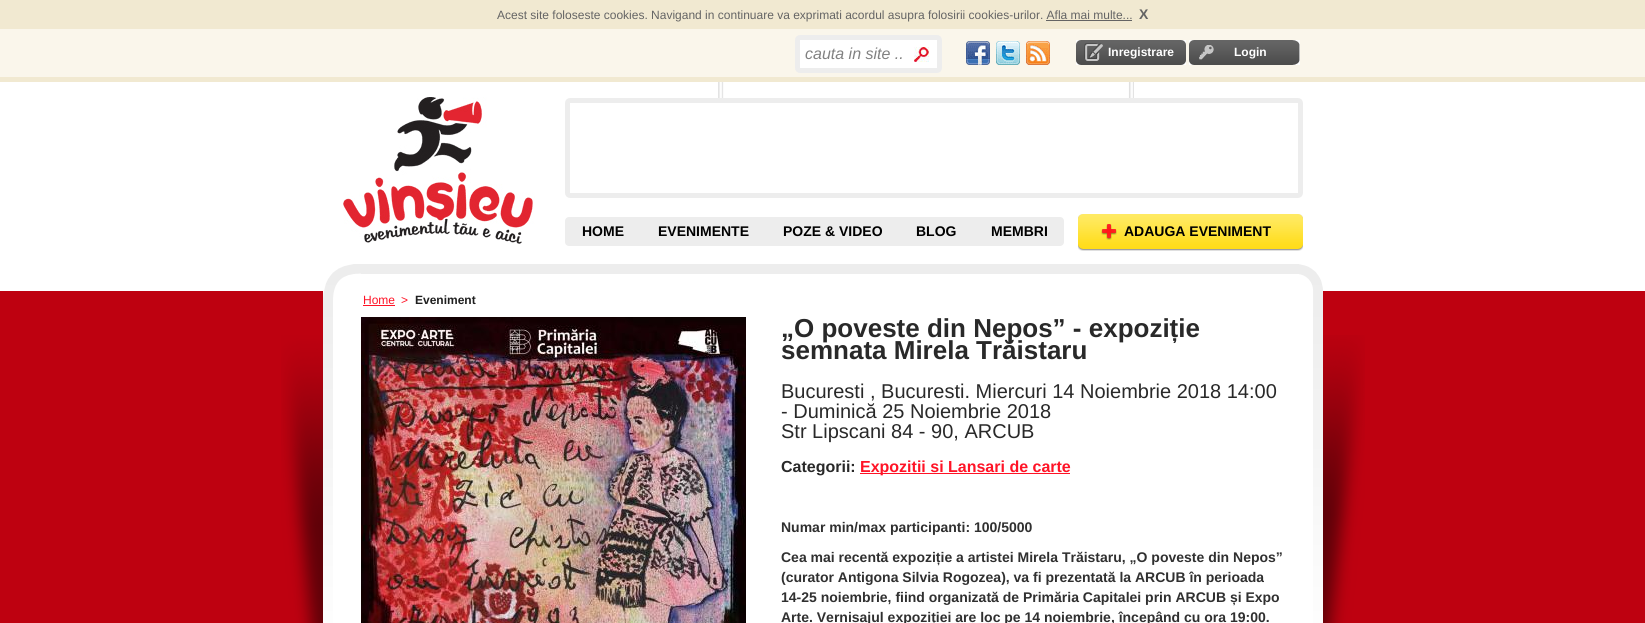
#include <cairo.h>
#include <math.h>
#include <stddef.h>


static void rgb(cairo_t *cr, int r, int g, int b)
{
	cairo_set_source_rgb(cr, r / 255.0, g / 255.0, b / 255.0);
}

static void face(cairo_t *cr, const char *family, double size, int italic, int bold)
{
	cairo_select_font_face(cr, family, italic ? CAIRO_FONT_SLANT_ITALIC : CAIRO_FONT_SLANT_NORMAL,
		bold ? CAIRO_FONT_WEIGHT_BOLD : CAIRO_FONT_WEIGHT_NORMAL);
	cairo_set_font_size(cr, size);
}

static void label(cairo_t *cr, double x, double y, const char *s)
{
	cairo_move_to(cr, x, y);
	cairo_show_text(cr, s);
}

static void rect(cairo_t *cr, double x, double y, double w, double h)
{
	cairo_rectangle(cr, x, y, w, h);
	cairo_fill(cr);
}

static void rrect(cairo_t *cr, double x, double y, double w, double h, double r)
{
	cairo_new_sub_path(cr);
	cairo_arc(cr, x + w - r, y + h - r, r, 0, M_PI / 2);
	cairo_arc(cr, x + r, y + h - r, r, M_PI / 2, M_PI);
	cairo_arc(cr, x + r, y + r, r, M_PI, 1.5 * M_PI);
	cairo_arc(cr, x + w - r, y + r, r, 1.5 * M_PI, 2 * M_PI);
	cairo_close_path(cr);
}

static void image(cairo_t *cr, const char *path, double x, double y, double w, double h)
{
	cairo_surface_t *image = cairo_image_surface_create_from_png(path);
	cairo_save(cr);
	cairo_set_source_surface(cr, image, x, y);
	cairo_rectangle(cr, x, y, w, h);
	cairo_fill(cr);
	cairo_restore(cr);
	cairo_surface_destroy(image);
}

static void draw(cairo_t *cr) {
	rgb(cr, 255, 255, 255);
	cairo_paint(cr);
	image(cr, "image0.png", 0, 82, 1645, 541);
	rgb(cr, 241, 233, 209);
	rect(cr, 0, 0, 1645, 29);
	face(cr, "Liberation Sans", 12, 0, 0);
	rgb(cr, 100, 100, 100);
	label(cr, 497, 19, "Acest site foloseste cookies. Navigand in continuare va exprimati acordul asupra folosirii cookies-urilor. Afla mai multe...");
	face(cr, "Liberation Sans", 14, 0, 1);
	label(cr, 1139, 19, "X");
	rect(cr, 1046, 20, 86, 1);
	rgb(cr, 250, 246, 235);
	rect(cr, 0, 29, 1645, 48);
	rgb(cr, 241, 233, 209);
	rect(cr, 0, 77, 1645, 5);
	rgb(cr, 255, 255, 255);
	rrect(cr, 797.5, 37.5, 142, 33, 2.5);
	cairo_fill_preserve(cr);
	rgb(cr, 237, 237, 237);
	cairo_set_line_width(cr, 5);
	cairo_stroke(cr);
	face(cr, "Liberation Sans", 16, 1, 0);
	rgb(cr, 129, 129, 129);
	label(cr, 805, 59, "cauta in site ..");
	image(cr, "image1.png", 914, 47, 15, 15);
	image(cr, "image2.png", 966, 41, 24, 24);
	image(cr, "image3.png", 996, 41, 24, 24);
	image(cr, "image4.png", 1026, 41, 24, 24);
	image(cr, "image5.png", 1076, 40, 110, 25);
	face(cr, "Liberation Sans", 12, 0, 1);
	rgb(cr, 255, 255, 255);
	label(cr, 1108, 56, "Inregistrare");
	image(cr, "image6.png", 1189, 40, 111, 25);
	label(cr, 1234, 56, "Login");
	image(cr, "image7.png", 343, 97, 192, 147);
	image(cr, "image8.png", 718, 82, 416, 16);
	rrect(cr, 567.5, 100.5, 733, 95, 2.5);
	rgb(cr, 237, 237, 237);
	cairo_stroke(cr);
	rrect(cr, 565, 217, 499, 29, 4);
	cairo_fill(cr);
	face(cr, "Liberation Sans", 14, 0, 1);
	rgb(cr, 0, 0, 0);
	label(cr, 582, 236, "HOME");
	label(cr, 658, 236, "EVENIMENTE");
	label(cr, 783, 236, "POZE & VIDEO");
	label(cr, 916, 236, "BLOG");
	label(cr, 991, 236, "MEMBRI");
	image(cr, "image9.png", 1078, 214, 225, 37);
	label(cr, 1124, 236, "ADAUGA EVENIMENT");
	image(cr, "image10.png", 281, 335, 1084, 288);
	rgb(cr, 255, 255, 255);
	rect(cr, 361, 291, 938, 332);
	face(cr, "Liberation Sans", 12, 0, 0);
	rgb(cr, 255, 19, 38);
	label(cr, 363, 304, "Home");
	rect(cr, 363, 305, 32, 1);
	label(cr, 401, 304, ">");
	face(cr, "Liberation Sans", 12, 0, 1);
	rgb(cr, 32, 32, 32);
	label(cr, 415, 304, "Eveniment");
	rgb(cr, 237, 237, 237);
	cairo_new_path(cr);
	cairo_move_to(cr, 323, 264);
	cairo_line_to(cr, 1323, 264);
	cairo_line_to(cr, 1322, 274);
	cairo_line_to(cr, 324, 274);
	cairo_close_path(cr);
	cairo_fill(cr);
	image(cr, "image11.png", 323, 264, 38, 359);
	image(cr, "image12.png", 361, 317, 385, 306);
	face(cr, "Liberation Sans", 26, 0, 1);
	rgb(cr, 41, 41, 41);
	label(cr, 781, 337, "„O poveste din Nepos” - expoziție");
	label(cr, 781, 359, "semnata Mirela Trăistaru");
	face(cr, "Liberation Sans", 20, 0, 0);
	label(cr, 781, 398, "Bucuresti , Bucuresti. Miercuri 14 Noiembrie 2018 14:00");
	label(cr, 781, 418, "- Duminică 25 Noiembrie 2018");
	label(cr, 781, 438, "Str Lipscani 84 - 90, ARCUB");
	face(cr, "Liberation Sans", 16, 0, 1);
	label(cr, 781, 472, "Categorii:");
	rgb(cr, 255, 19, 38);
	rect(cr, 860, 473, 210, 1);
	label(cr, 860, 472, "Expozitii si Lansari de carte");
	face(cr, "Liberation Sans", 14, 0, 1);
	rgb(cr, 48, 48, 48);
	label(cr, 781, 532, "Numar min/max participanti: 100/5000");
	label(cr, 781, 562, "Cea mai recentă expoziție a artistei Mirela Trăistaru, „O poveste din Nepos”");
	label(cr, 781, 582, "(curator Antigona Silvia Rogozea), va fi prezentată la ARCUB în perioada");
	label(cr, 781, 602, "14-25 noiembrie, fiind organizată de Primăria Capitalei prin ARCUB și Expo");
	label(cr, 781, 622, "Arte. Vernisajul expoziției are loc pe 14 noiembrie, începând cu ora 19:00.");
	image(cr, "image13.png", 1299, 264, 24, 359);
}

int main(void) {
	cairo_surface_t *surface = cairo_image_surface_create(CAIRO_FORMAT_RGB24, 1645, 623);
	cairo_t *cr = cairo_create(surface);
	cairo_font_options_t *options = cairo_font_options_create();
	cairo_font_options_set_hint_metrics(options, CAIRO_HINT_METRICS_OFF);
	cairo_font_options_set_hint_style(options, CAIRO_HINT_STYLE_NONE);
	cairo_set_font_options(cr, options);
	cairo_set_miter_limit(cr, 4);
	draw(cr);
	cairo_surface_write_to_png(surface, "render.png");
	cairo_font_options_destroy(options);
	cairo_destroy(cr);
	cairo_surface_destroy(surface);
	return 0;
}
